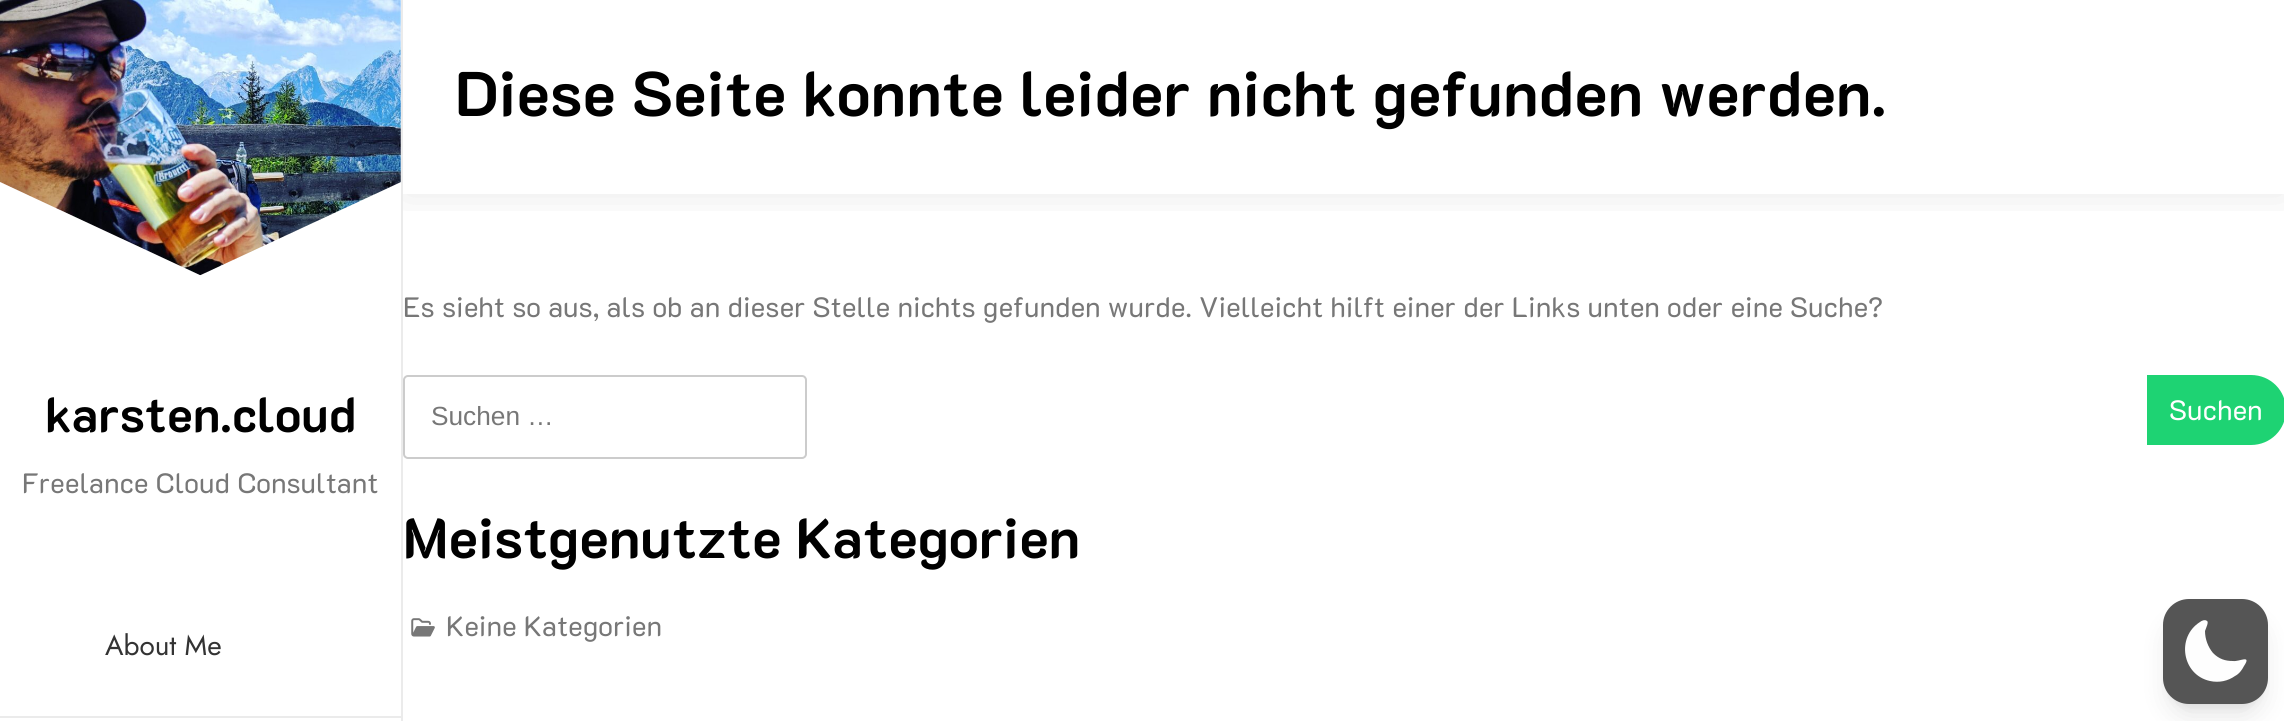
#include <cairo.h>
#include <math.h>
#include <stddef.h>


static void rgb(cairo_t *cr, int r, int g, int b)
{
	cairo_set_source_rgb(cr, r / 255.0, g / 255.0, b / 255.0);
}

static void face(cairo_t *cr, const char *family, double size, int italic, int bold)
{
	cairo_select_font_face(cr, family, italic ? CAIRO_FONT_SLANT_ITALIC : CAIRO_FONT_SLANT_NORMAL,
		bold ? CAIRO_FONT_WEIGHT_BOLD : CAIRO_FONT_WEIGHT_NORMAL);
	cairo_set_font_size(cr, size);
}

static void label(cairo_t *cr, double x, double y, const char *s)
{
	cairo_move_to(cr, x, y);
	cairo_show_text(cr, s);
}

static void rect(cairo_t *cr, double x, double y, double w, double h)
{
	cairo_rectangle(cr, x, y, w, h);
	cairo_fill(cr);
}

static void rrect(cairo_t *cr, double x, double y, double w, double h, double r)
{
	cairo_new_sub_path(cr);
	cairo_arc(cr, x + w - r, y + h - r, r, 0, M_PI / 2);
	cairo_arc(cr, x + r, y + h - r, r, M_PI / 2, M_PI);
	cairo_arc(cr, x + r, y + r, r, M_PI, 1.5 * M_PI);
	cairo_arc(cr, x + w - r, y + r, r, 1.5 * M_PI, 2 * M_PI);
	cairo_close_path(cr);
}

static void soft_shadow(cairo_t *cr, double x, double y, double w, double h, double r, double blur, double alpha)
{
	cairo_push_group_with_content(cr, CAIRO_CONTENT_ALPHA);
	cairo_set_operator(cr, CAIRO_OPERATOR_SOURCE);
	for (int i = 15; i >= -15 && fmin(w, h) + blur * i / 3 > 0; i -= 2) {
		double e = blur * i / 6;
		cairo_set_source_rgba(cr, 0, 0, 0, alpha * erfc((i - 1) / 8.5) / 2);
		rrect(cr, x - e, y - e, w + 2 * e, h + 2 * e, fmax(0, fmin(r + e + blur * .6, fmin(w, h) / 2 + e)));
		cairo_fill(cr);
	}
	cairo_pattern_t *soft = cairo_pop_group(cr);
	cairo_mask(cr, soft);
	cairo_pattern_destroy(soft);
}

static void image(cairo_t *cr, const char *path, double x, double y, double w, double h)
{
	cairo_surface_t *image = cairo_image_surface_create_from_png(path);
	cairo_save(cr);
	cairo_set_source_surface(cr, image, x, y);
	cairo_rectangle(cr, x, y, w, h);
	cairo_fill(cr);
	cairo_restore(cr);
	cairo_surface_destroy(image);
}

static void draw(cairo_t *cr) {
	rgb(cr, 255, 255, 255);
	cairo_paint(cr);
	cairo_save(cr);
	cairo_rectangle(cr, 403, 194, 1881, 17);
	cairo_clip(cr);
	rgb(cr, 0, 0, 0);
	soft_shadow(cr, 403, 0, 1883, 194, 0, 22, 0.09);
	cairo_restore(cr);
	rgb(cr, 255, 255, 255);
	rect(cr, 376, 0, 25, 209);
	rgb(cr, 235, 235, 235);
	rect(cr, 401, 0, 2, 721);
	image(cr, "image0.png", 0, 0, 401, 276);
	cairo_save(cr);
	cairo_rectangle(cr, 0, 0, 401, 280);
	cairo_clip(cr);
	rgb(cr, 255, 255, 255);
	cairo_new_path(cr);
	cairo_move_to(cr, 0, 182);
	cairo_line_to(cr, 363, 351);
	cairo_line_to(cr, 280, 529);
	cairo_line_to(cr, -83, 360);
	cairo_close_path(cr);
	cairo_fill(cr);
	cairo_new_path(cr);
	cairo_move_to(cr, 37, 351);
	cairo_line_to(cr, 401, 182);
	cairo_line_to(cr, 483, 360);
	cairo_line_to(cr, 120, 529);
	cairo_close_path(cr);
	cairo_fill(cr);
	cairo_restore(cr);
	face(cr, "K2D", 49, 0, 1);
	rgb(cr, 0, 0, 0);
	label(cr, 45, 432, "karsten.cloud");
	face(cr, "K2D", 28, 0, 0);
	rgb(cr, 119, 119, 119);
	label(cr, 22, 493, "Freelance Cloud Consultant");
	rgb(cr, 235, 235, 235);
	rect(cr, 0, 716, 401, 2);
	face(cr, "Jost", 28, 0, 0);
	rgb(cr, 51, 51, 51);
	label(cr, 105, 655, "About Me");
	face(cr, "K2D", 63, 0, 1);
	rgb(cr, 0, 0, 0);
	label(cr, 455, 116, "Diese Seite konnte leider nicht gefunden werden.");
	face(cr, "K2D", 28, 0, 0);
	rgb(cr, 119, 119, 119);
	label(cr, 403, 317, "Es sieht so aus, als ob an dieser Stelle nichts gefunden wurde. Vielleicht hilft einer der Links unten oder eine Suche?");
	rrect(cr, 404, 376, 402, 82, 4);
	rgb(cr, 204, 204, 204);
	cairo_stroke(cr);
	face(cr, "Liberation Sans", 26.25, 0, 0);
	rgb(cr, 119, 119, 119);
	label(cr, 431, 425, "Suchen …");
	rgb(cr, 30, 211, 115);
	cairo_new_path(cr);
	cairo_move_to(cr, 2147, 375);
	cairo_line_to(cr, 2251, 375);
	cairo_curve_to(cr, 2270.5, 375, 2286, 390.5, 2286, 410);
	cairo_curve_to(cr, 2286, 429.5, 2270.5, 445, 2251, 445);
	cairo_line_to(cr, 2147, 445);
	cairo_close_path(cr);
	cairo_fill(cr);
	face(cr, "K2D", 28, 0, 0);
	rgb(cr, 255, 255, 255);
	label(cr, 2169, 420, "Suchen");
	face(cr, "K2D", 56, 0, 1);
	rgb(cr, 0, 0, 0);
	label(cr, 403, 558, "Meistgenutzte Kategorien");
	image(cr, "image1.png", 411, 618, 24, 19);
	face(cr, "K2D", 28, 0, 0);
	rgb(cr, 119, 119, 119);
	label(cr, 446, 636, "Keine Kategorien");
	rgb(cr, 0, 0, 0);
	soft_shadow(cr, 2170, 613, 91, 91, 19, 5, 0.1);
	soft_shadow(cr, 2168, 621, 95, 95, 21, 13, 0.1);
	rgb(cr, 85, 85, 85);
	rrect(cr, 2163, 599, 105, 105, 26);
	cairo_fill(cr);
	rgb(cr, 254, 254, 254);
	cairo_set_fill_rule(cr, CAIRO_FILL_RULE_EVEN_ODD);
	cairo_new_path(cr);
	cairo_move_to(cr, 2207, 621);
	cairo_curve_to(cr, 2209, 622, 2206, 628, 2205, 631);
	cairo_curve_to(cr, 2205, 639, 2208, 647, 2213, 653);
	cairo_curve_to(cr, 2219, 659, 2225, 661, 2233, 661);
	cairo_curve_to(cr, 2239, 662, 2252, 654, 2244, 666);
	cairo_curve_to(cr, 2242, 670, 2239, 674, 2235, 676);
	cairo_curve_to(cr, 2228, 681, 2219, 683, 2210, 681);
	cairo_curve_to(cr, 2182, 675, 2176, 637, 2200, 622);
	cairo_curve_to(cr, 2201, 621, 2205, 619, 2207, 621);
	cairo_close_path(cr);
	cairo_fill(cr);
}

int main(void) {
	cairo_surface_t *surface = cairo_image_surface_create(CAIRO_FORMAT_RGB24, 2284, 721);
	cairo_t *cr = cairo_create(surface);
	cairo_font_options_t *options = cairo_font_options_create();
	cairo_font_options_set_hint_metrics(options, CAIRO_HINT_METRICS_OFF);
	cairo_font_options_set_hint_style(options, CAIRO_HINT_STYLE_NONE);
	cairo_set_font_options(cr, options);
	cairo_set_miter_limit(cr, 4);
	draw(cr);
	cairo_surface_write_to_png(surface, "render.png");
	cairo_font_options_destroy(options);
	cairo_destroy(cr);
	cairo_surface_destroy(surface);
	return 0;
}
